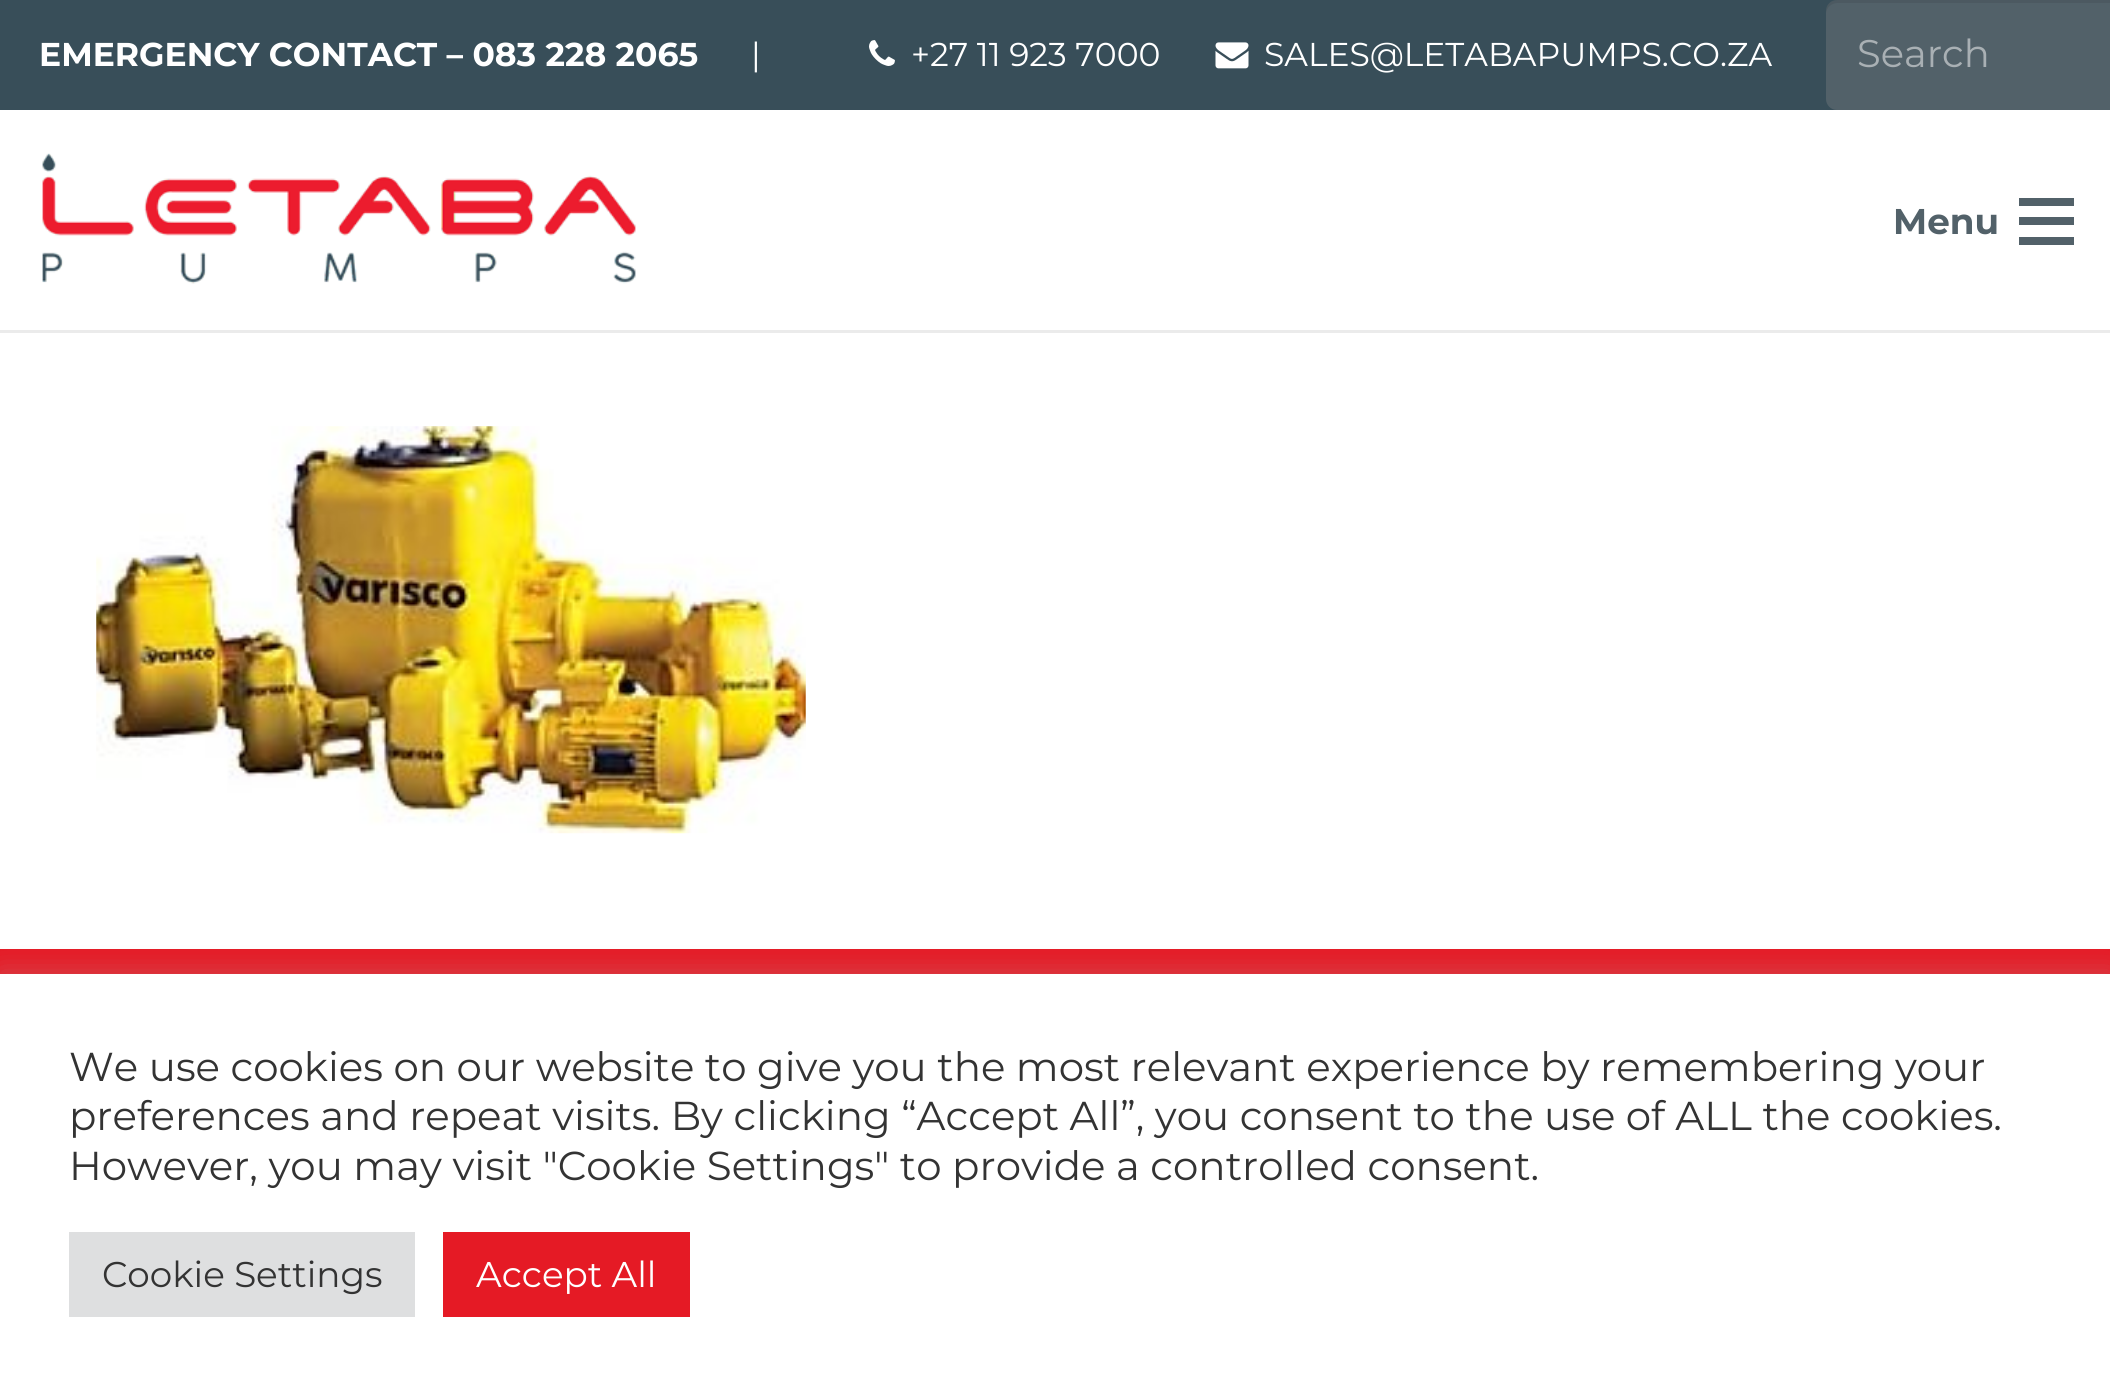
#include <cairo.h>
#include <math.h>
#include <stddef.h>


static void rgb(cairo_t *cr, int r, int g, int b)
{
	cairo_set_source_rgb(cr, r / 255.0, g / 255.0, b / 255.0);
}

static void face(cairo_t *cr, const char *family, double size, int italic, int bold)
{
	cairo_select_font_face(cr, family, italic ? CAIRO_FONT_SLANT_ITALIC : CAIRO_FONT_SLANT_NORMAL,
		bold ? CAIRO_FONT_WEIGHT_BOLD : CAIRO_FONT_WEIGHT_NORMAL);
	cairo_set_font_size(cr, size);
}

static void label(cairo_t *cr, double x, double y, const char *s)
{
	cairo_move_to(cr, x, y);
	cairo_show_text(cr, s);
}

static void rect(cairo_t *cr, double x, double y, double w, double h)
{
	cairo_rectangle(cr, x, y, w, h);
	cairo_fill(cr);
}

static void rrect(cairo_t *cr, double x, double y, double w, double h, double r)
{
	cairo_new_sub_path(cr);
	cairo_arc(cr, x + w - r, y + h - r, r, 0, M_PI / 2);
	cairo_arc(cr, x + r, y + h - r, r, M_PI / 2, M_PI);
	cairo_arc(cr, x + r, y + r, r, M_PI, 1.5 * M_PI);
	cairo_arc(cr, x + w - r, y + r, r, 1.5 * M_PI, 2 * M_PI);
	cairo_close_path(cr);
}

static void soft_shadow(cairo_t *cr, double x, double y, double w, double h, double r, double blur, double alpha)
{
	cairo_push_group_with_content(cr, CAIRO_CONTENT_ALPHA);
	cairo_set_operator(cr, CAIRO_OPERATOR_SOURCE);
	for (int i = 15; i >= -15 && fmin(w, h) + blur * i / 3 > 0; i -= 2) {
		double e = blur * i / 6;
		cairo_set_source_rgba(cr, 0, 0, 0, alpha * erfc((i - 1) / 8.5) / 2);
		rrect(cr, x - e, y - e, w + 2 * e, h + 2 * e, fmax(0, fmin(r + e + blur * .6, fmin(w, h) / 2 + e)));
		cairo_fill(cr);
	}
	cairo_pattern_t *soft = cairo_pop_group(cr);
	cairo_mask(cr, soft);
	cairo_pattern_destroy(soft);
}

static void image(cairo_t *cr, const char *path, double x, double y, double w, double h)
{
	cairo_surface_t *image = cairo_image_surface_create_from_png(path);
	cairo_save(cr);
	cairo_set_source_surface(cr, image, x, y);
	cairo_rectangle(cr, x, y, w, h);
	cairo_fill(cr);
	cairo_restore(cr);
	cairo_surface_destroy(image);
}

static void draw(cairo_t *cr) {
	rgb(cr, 255, 255, 255);
	cairo_paint(cr);
	rgb(cr, 56, 78, 89);
	rect(cr, 0, 0, 1837, 110);
	face(cr, "Montserrat", 33, 0, 1);
	rgb(cr, 255, 255, 255);
	label(cr, 39, 66, "EMERGENCY CONTACT – 083 228 2065");
	face(cr, "Montserrat", 33, 0, 0);
	label(cr, 751, 66, "|");
	image(cr, "image0.png", 869, 40, 26, 26);
	label(cr, 911, 66, "+27 11 923 7000");
	image(cr, "image1.png", 1215, 42, 34, 27);
	label(cr, 1264, 66, "SALES@LETABAPUMPS.CO.ZA");
	rgb(cr, 82, 97, 105);
	rrect(cr, 1826, 0, 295, 110, 11);
	cairo_fill(cr);
	cairo_set_source_rgba(cr, 0, 0, 0, 0.08);
	cairo_new_path(cr);
	cairo_move_to(cr, 1838, 3);
	cairo_line_to(cr, 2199, 3);
	cairo_curve_to(cr, 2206, 3, 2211, 8, 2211, 14);
	cairo_line_to(cr, 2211, 11);
	cairo_curve_to(cr, 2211, 5, 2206, 0, 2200, 0);
	cairo_line_to(cr, 1837, 0);
	cairo_curve_to(cr, 1831, 0, 1826, 5, 1826, 11);
	cairo_line_to(cr, 1826, 14);
	cairo_curve_to(cr, 1826, 8, 1831, 3, 1838, 3);
	cairo_close_path(cr);
	cairo_fill(cr);
	face(cr, "Montserrat", 38.5, 0, 0);
	rgb(cr, 169, 176, 180);
	label(cr, 1857, 67, "Search");
	rgb(cr, 235, 235, 235);
	rect(cr, 0, 330, 2110, 3);
	image(cr, "image2.png", 42, 153, 594, 131);
	face(cr, "Montserrat", 35.75, 0, 1);
	rgb(cr, 82, 97, 105);
	label(cr, 1893, 234, "Menu");
	rect(cr, 2019, 217, 55, 8);
	rect(cr, 2019, 198, 55, 8);
	rect(cr, 2019, 237, 55, 8);
	image(cr, "image3.png", 96, 426, 710, 408);
	rgb(cr, 229, 26, 37);
	rect(cr, 0, 949, 2110, 25);
	rgb(cr, 172, 171, 171);
	soft_shadow(cr, 0, 971, 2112, 426, 0, 14, 0.3);
	rgb(cr, 255, 255, 255);
	rect(cr, 0, 974, 2110, 424);
	face(cr, "Montserrat", 40.35, 0, 0);
	rgb(cr, 51, 51, 51);
	label(cr, 69, 1081, "We use cookies on our website to give you the most relevant experience by remembering your");
	label(cr, 69, 1130, "preferences and repeat visits. By clicking “Accept All”, you consent to the use of ALL the cookies.");
	label(cr, 69, 1180, "However, you may visit \"Cookie Settings\" to provide a controlled consent.");
	rgb(cr, 222, 223, 224);
	rect(cr, 69, 1232, 346, 85);
	face(cr, "Montserrat", 35.75, 0, 0);
	rgb(cr, 51, 51, 51);
	label(cr, 102, 1287, "Cookie Settings");
	rgb(cr, 229, 26, 37);
	rect(cr, 443, 1232, 247, 85);
	rgb(cr, 255, 255, 255);
	label(cr, 476, 1287, "Accept All");
}

int main(void) {
	cairo_surface_t *surface = cairo_image_surface_create(CAIRO_FORMAT_RGB24, 2110, 1398);
	cairo_t *cr = cairo_create(surface);
	cairo_font_options_t *options = cairo_font_options_create();
	cairo_font_options_set_hint_metrics(options, CAIRO_HINT_METRICS_OFF);
	cairo_font_options_set_hint_style(options, CAIRO_HINT_STYLE_NONE);
	cairo_set_font_options(cr, options);
	cairo_set_miter_limit(cr, 4);
	draw(cr);
	cairo_surface_write_to_png(surface, "render.png");
	cairo_font_options_destroy(options);
	cairo_destroy(cr);
	cairo_surface_destroy(surface);
	return 0;
}
